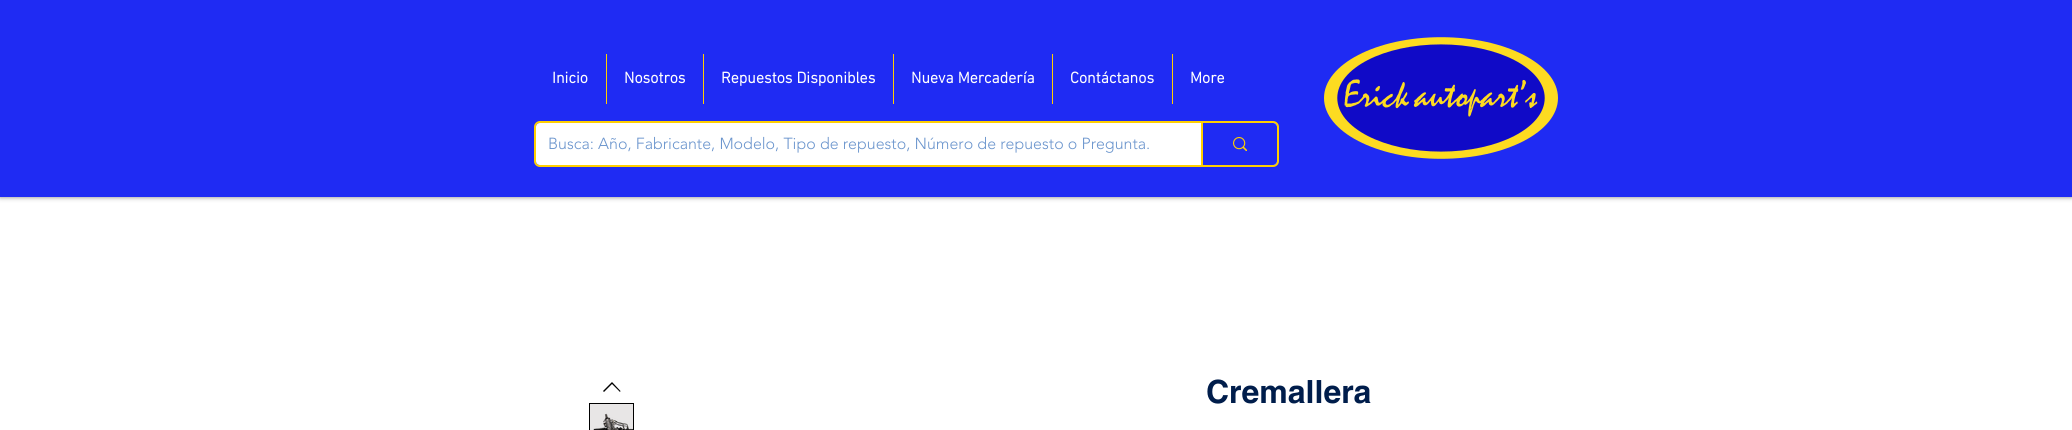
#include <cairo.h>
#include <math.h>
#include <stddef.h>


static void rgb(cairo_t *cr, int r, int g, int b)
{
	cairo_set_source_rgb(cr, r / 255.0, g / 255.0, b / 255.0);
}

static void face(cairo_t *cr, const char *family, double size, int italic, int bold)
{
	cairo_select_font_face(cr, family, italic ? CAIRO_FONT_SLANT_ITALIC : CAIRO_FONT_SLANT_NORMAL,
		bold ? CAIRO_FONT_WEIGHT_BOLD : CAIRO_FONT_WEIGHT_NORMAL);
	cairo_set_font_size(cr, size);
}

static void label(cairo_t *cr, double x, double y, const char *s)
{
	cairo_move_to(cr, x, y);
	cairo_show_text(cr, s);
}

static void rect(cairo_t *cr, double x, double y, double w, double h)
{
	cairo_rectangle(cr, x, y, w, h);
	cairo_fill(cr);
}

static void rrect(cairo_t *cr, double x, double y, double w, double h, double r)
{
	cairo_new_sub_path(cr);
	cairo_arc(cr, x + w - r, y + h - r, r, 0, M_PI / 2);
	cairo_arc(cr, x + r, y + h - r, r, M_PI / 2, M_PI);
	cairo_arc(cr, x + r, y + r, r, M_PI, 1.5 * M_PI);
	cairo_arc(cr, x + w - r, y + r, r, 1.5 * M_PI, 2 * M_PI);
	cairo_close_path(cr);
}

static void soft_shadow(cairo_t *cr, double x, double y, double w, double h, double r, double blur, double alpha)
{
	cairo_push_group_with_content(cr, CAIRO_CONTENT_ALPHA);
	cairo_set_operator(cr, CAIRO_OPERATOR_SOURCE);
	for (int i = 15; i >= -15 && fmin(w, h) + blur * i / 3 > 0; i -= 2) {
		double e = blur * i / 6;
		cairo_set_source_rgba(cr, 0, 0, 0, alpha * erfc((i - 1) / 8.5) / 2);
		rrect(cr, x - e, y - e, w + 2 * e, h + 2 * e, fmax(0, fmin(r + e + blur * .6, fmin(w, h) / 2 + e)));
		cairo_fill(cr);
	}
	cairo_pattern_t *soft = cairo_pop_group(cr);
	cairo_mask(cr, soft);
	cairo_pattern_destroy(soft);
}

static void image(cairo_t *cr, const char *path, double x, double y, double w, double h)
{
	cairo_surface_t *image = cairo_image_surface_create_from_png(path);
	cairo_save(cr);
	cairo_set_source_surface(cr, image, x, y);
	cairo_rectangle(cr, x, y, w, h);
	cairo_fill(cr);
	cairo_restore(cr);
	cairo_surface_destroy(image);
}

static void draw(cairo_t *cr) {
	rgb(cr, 255, 255, 255);
	cairo_paint(cr);
	rgb(cr, 0, 0, 0);
	soft_shadow(cr, 0, 0, 2072, 197, 0, 2.5, 0.5);
	rgb(cr, 31, 43, 243);
	rect(cr, 0, 0, 2072, 197);
	face(cr, "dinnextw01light", 16, 0, 1);
	rgb(cr, 255, 255, 255);
	label(cr, 552, 83, "Inicio");
	rgb(cr, 255, 207, 0);
	rect(cr, 606, 54, 1, 50);
	rgb(cr, 255, 255, 255);
	label(cr, 624, 83, "Nosotros");
	rgb(cr, 255, 207, 0);
	rect(cr, 703, 54, 1, 50);
	rgb(cr, 255, 255, 255);
	label(cr, 721, 83, "Repuestos Disponibles");
	rgb(cr, 255, 207, 0);
	rect(cr, 893, 54, 1, 50);
	rgb(cr, 255, 255, 255);
	label(cr, 911, 83, "Nueva Mercadería");
	rgb(cr, 255, 207, 0);
	rect(cr, 1052, 54, 1, 50);
	rgb(cr, 255, 255, 255);
	label(cr, 1070, 83, "Contáctanos");
	rgb(cr, 255, 207, 0);
	rect(cr, 1172, 54, 1, 50);
	rgb(cr, 255, 255, 255);
	label(cr, 1190, 83, "More");
	image(cr, "image0.png", 1324, 37, 234, 122);
	rrect(cr, 535, 122, 743, 44, 5);
	rgb(cr, 255, 207, 0);
	cairo_stroke(cr);
	rgb(cr, 255, 255, 255);
	rrect(cr, 536, 123, 741, 42, 4);
	cairo_fill(cr);
	face(cr, "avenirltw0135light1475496 Light", 16, 0, 0);
	rgb(cr, 107, 149, 205);
	label(cr, 548, 149, "Busca: Año, Fabricante, Modelo, Tipo de repuesto, Número de repuesto o Pregunta.");
	rgb(cr, 31, 43, 243);
	cairo_new_path(cr);
	cairo_move_to(cr, 1201, 123);
	cairo_line_to(cr, 1273, 123);
	cairo_curve_to(cr, 1275, 123, 1277, 125, 1277, 127);
	cairo_line_to(cr, 1277, 161);
	cairo_curve_to(cr, 1277, 163, 1275, 165, 1273, 165);
	cairo_line_to(cr, 1201, 165);
	cairo_close_path(cr);
	cairo_fill(cr);
	rgb(cr, 255, 207, 0);
	rect(cr, 1201, 123, 2, 42);
	image(cr, "image1.png", 1233, 137, 14, 14);
	rgb(cr, 0, 0, 0);
	cairo_set_fill_rule(cr, CAIRO_FILL_RULE_EVEN_ODD);
	cairo_new_path(cr);
	cairo_move_to(cr, 612, 382);
	cairo_line_to(cr, 620.5, 391);
	cairo_line_to(cr, 620, 392);
	cairo_line_to(cr, 612, 384);
	cairo_line_to(cr, 604, 392);
	cairo_line_to(cr, 603, 391);
	cairo_close_path(cr);
	cairo_fill(cr);
	rgb(cr, 232, 230, 230);
	cairo_rectangle(cr, 589.5, 403.5, 44, 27);
	cairo_fill_preserve(cr);
	rgb(cr, 0, 0, 0);
	cairo_set_line_width(cr, 1);
	cairo_stroke(cr);
	image(cr, "image2.png", 593, 413, 40, 17);
	face(cr, "helvetica", 32, 0, 1);
	rgb(cr, 0, 29, 75);
	label(cr, 1206, 403, "Cremallera");
}

int main(void) {
	cairo_surface_t *surface = cairo_image_surface_create(CAIRO_FORMAT_RGB24, 2072, 430);
	cairo_t *cr = cairo_create(surface);
	cairo_font_options_t *options = cairo_font_options_create();
	cairo_font_options_set_hint_metrics(options, CAIRO_HINT_METRICS_OFF);
	cairo_font_options_set_hint_style(options, CAIRO_HINT_STYLE_NONE);
	cairo_set_font_options(cr, options);
	cairo_set_miter_limit(cr, 4);
	draw(cr);
	cairo_surface_write_to_png(surface, "render.png");
	cairo_font_options_destroy(options);
	cairo_destroy(cr);
	cairo_surface_destroy(surface);
	return 0;
}
